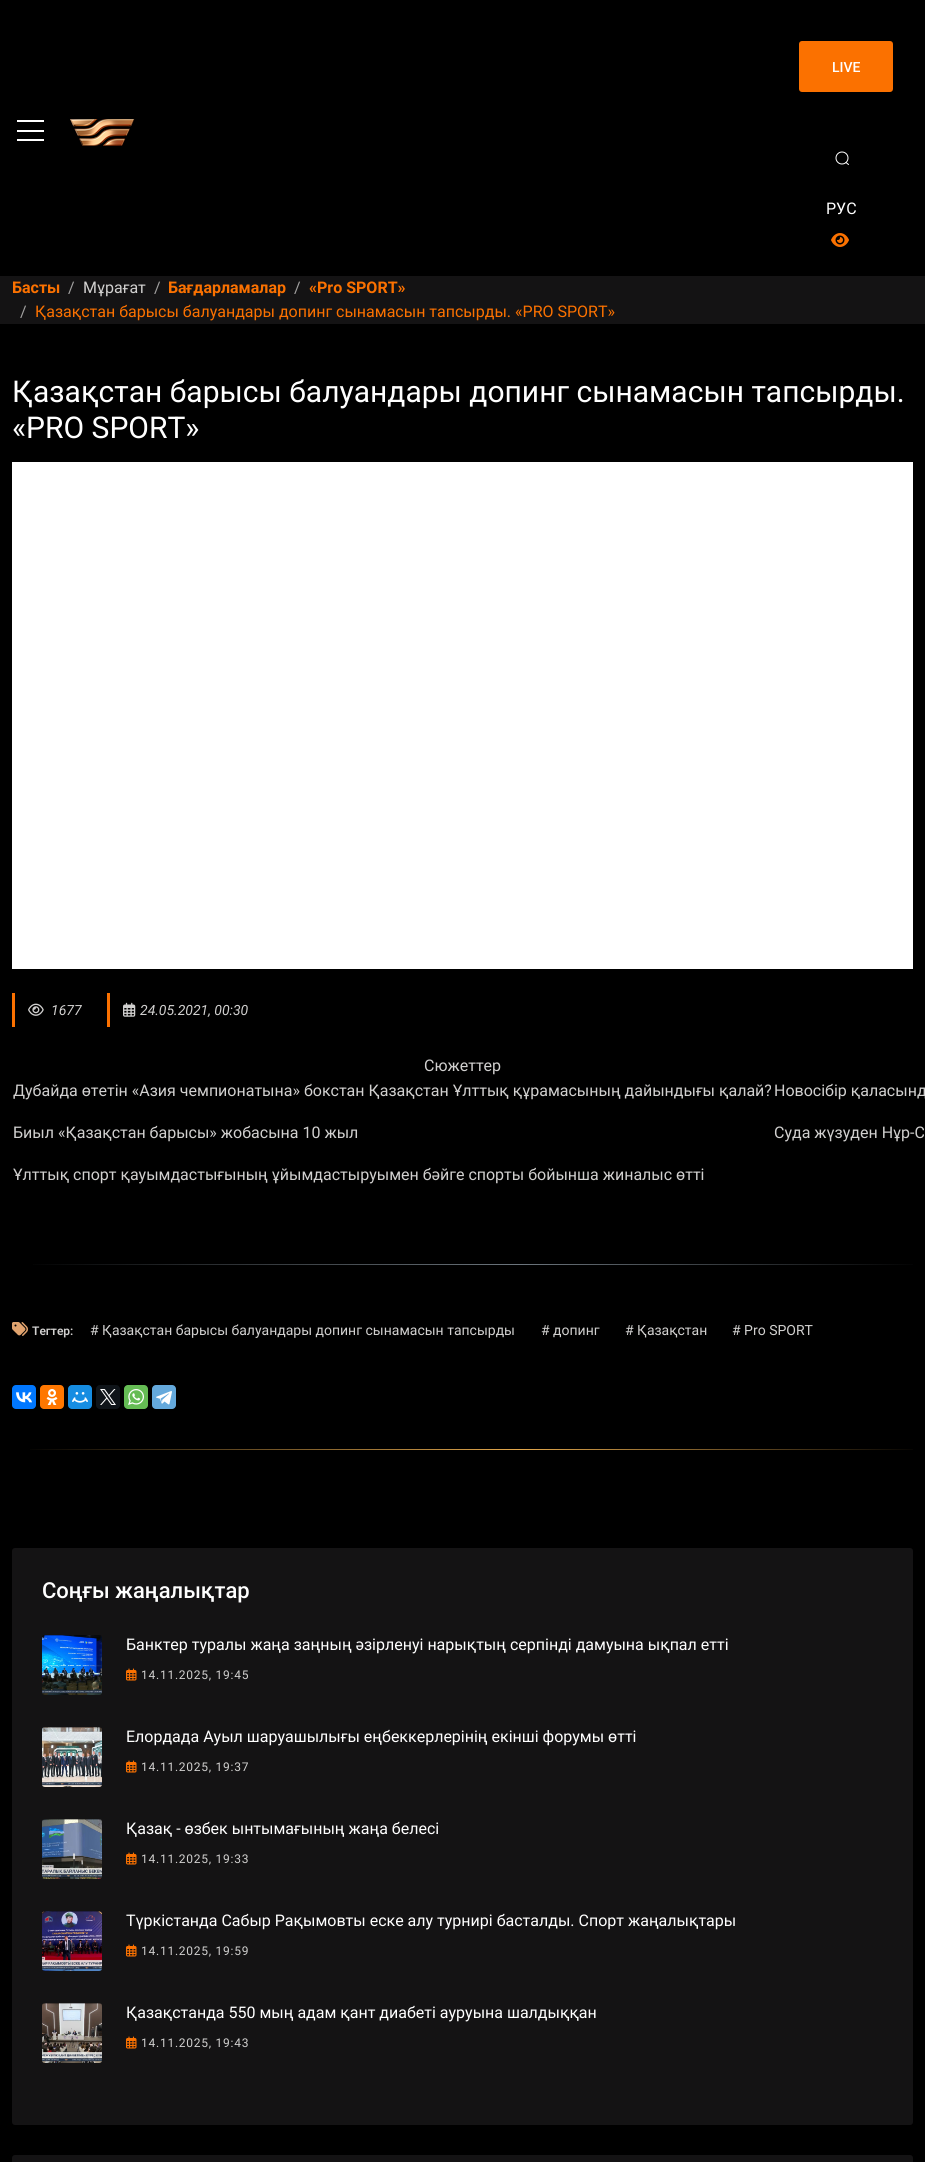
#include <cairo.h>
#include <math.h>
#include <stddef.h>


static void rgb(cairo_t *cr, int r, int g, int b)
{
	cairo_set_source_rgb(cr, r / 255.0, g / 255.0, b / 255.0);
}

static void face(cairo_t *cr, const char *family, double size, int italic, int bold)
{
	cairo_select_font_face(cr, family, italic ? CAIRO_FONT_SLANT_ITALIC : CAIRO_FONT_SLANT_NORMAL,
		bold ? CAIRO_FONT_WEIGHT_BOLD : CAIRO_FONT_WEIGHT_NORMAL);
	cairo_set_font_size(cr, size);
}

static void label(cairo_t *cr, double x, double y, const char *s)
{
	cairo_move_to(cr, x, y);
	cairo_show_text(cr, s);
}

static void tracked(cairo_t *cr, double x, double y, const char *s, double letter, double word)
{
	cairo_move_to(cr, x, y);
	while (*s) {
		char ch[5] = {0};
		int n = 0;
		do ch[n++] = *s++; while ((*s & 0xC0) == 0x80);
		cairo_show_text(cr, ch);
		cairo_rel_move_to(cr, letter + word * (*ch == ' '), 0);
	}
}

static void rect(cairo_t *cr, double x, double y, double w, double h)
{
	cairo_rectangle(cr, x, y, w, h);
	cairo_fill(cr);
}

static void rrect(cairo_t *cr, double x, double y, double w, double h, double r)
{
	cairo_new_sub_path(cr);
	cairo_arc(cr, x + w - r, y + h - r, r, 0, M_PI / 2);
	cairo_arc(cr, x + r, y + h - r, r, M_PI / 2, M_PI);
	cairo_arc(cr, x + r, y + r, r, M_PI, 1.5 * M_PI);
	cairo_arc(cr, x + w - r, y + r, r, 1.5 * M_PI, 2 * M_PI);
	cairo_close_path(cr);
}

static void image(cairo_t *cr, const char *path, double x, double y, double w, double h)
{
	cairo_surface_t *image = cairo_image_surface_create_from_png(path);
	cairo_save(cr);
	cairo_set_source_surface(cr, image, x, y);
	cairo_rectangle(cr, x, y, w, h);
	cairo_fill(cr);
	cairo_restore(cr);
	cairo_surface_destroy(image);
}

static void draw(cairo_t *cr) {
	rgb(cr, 0, 0, 0);
	cairo_paint(cr);
	rgb(cr, 255, 255, 255);
	rect(cr, 17, 130, 27, 2);
	rect(cr, 17, 120, 27, 2);
	rect(cr, 17, 139, 27, 2);
	image(cr, "image0.png", 70, 119, 65, 27);
	rrect(cr, 799.5, 41.5, 93, 50, 2.5);
	rgb(cr, 251, 113, 0);
	cairo_set_line_width(cr, 1);
	cairo_stroke(cr);
	rect(cr, 800, 42, 92, 49);
	face(cr, "Roboto Medium", 14, 0, 0);
	rgb(cr, 255, 255, 255);
	label(cr, 832, 72, "LIVE");
	cairo_new_path(cr);
	cairo_arc(cr, 842, 158, 6, 0, 2 * M_PI);
	cairo_stroke(cr);
	cairo_new_path(cr);
	cairo_move_to(cr, 846, 162.5);
	cairo_line_to(cr, 848.5, 164.5);
	cairo_set_line_cap(cr, CAIRO_LINE_CAP_ROUND);
	cairo_set_line_join(cr, CAIRO_LINE_JOIN_ROUND);
	cairo_stroke(cr);
	face(cr, "Roboto", 16, 0, 0);
	label(cr, 826, 214, "РУС");
	image(cr, "image1.png", 831, 233, 18, 14);
	rgb(cr, 20, 19, 20);
	rect(cr, 0, 276, 925, 48);
	face(cr, "Roboto", 16, 0, 1);
	rgb(cr, 251, 113, 0);
	label(cr, 12, 293, "Басты");
	face(cr, "Roboto", 16, 0, 0);
	rgb(cr, 162, 161, 160);
	label(cr, 68, 293, "/");
	rgb(cr, 209, 208, 207);
	label(cr, 83, 293, "Мұрағат");
	rgb(cr, 162, 161, 160);
	label(cr, 154, 293, "/");
	face(cr, "Roboto", 16, 0, 1);
	rgb(cr, 251, 113, 0);
	label(cr, 168, 293, "Бағдарламалар");
	face(cr, "Roboto", 16, 0, 0);
	rgb(cr, 162, 161, 160);
	label(cr, 294, 293, "/");
	face(cr, "Roboto", 16, 0, 1);
	rgb(cr, 251, 113, 0);
	label(cr, 309, 293, "«Pro SPORT»");
	face(cr, "Roboto", 16, 0, 0);
	rgb(cr, 162, 161, 160);
	label(cr, 20, 317, "/");
	rgb(cr, 251, 113, 0);
	label(cr, 35, 317, "Қазақстан барысы балуандары допинг сынамасын тапсырды. «PRO SPORT»");
	face(cr, "Roboto", 30, 0, 0);
	rgb(cr, 255, 255, 255);
	label(cr, 12, 402, "Қазақстан барысы балуандары допинг сынамасын тапсырды.");
	label(cr, 12, 438, "«PRO SPORT»");
	rect(cr, 12, 462, 901, 507);
	image(cr, "image2.png", 30, 1449, 883, 1);
	rgb(cr, 251, 113, 0);
	rect(cr, 12, 993, 3, 34);
	image(cr, "image3.png", 28, 1003, 16, 13);
	face(cr, "Roboto", 14, 1, 0);
	rgb(cr, 209, 208, 207);
	label(cr, 51, 1015, "1677");
	rgb(cr, 251, 113, 0);
	rect(cr, 107, 993, 3, 34);
	image(cr, "image4.png", 123, 1002, 13, 15);
	rgb(cr, 209, 208, 207);
	label(cr, 140, 1015, "24.05.2021, 00:30");
	face(cr, "Roboto", 16, 0, 0);
	label(cr, 424, 1071, "Сюжеттер");
	label(cr, 13, 1096, "Дубайда өтетін «Азия чемпионатына» бокстан Қазақстан Ұлттық құрамасының дайындығы қалай?");
	label(cr, 774, 1096, "Новосібір қаласынд");
	label(cr, 13, 1138, "Биыл «Қазақстан барысы» жобасына 10 жыл");
	label(cr, 774, 1138, "Суда жүзуден Нұр-С");
	label(cr, 13, 1180, "Ұлттық спорт қауымдастығының ұйымдастыруымен бәйге спорты бойынша жиналыс өтті");
	image(cr, "image5.png", 33, 1264, 880, 1);
	image(cr, "image6.png", 12, 1322, 16, 14);
	face(cr, "Roboto SemiBold", 12, 0, 0);
	label(cr, 32, 1335, "Тегтер:");
	face(cr, "Roboto", 14, 0, 0);
	label(cr, 90, 1335, "# Қазақстан барысы балуандары допинг сынамасын тапсырды");
	label(cr, 541, 1335, "# допинг");
	label(cr, 625, 1335, "# Қазақстан");
	label(cr, 732, 1335, "# Pro SPORT");
	rgb(cr, 0, 119, 255);
	rrect(cr, 12, 1385, 24, 24, 4);
	cairo_fill(cr);
	image(cr, "image7.png", 16, 1392, 16, 11);
	rgb(cr, 255, 119, 0);
	rrect(cr, 40, 1385, 24, 24, 4);
	cairo_fill(cr);
	image(cr, "image8.png", 46, 1389, 12, 16);
	rgb(cr, 22, 141, 226);
	rrect(cr, 68, 1385, 24, 24, 4);
	cairo_fill(cr);
	image(cr, "image9.png", 72, 1392, 16, 11);
	rgb(cr, 15, 20, 25);
	rrect(cr, 96, 1385, 24, 24, 4);
	cairo_fill(cr);
	image(cr, "image10.png", 100, 1389, 16, 16);
	rgb(cr, 101, 188, 84);
	rrect(cr, 124, 1385, 24, 24, 4);
	cairo_fill(cr);
	image(cr, "image11.png", 128, 1389, 16, 16);
	rgb(cr, 100, 169, 220);
	rrect(cr, 152, 1385, 24, 24, 4);
	cairo_fill(cr);
	image(cr, "image12.png", 156, 1391, 16, 14);
	rgb(cr, 20, 19, 20);
	rrect(cr, 12, 1548, 901, 577, 3);
	cairo_fill(cr);
	face(cr, "Roboto Medium", 22, 0, 0);
	rgb(cr, 255, 255, 255);
	label(cr, 42, 1598, "Соңғы жаңалықтар");
	image(cr, "image13.png", 42, 1635, 60, 60);
	face(cr, "Roboto", 16, 0, 0);
	label(cr, 126, 1650, "Банктер туралы жаңа заңның әзірленуі нарықтың серпінді дамуына ықпал етті");
	image(cr, "image14.png", 126, 1668, 11, 13);
	face(cr, "Roboto", 12, 0, 0);
	rgb(cr, 209, 208, 207);
	tracked(cr, 141, 1679, "14.11.2025, 19:45", 0.75, 0);
	image(cr, "image15.png", 42, 1727, 60, 60);
	face(cr, "Roboto", 16, 0, 0);
	rgb(cr, 255, 255, 255);
	label(cr, 126, 1742, "Елордада Ауыл шаруашылығы еңбеккерлерінің екінші форумы өтті");
	image(cr, "image14.png", 126, 1760, 11, 13);
	face(cr, "Roboto", 12, 0, 0);
	rgb(cr, 209, 208, 207);
	tracked(cr, 141, 1771, "14.11.2025, 19:37", 0.75, 0);
	image(cr, "image16.png", 42, 1819, 60, 60);
	face(cr, "Roboto", 16, 0, 0);
	rgb(cr, 255, 255, 255);
	label(cr, 126, 1834, "Қазақ - өзбек ынтымағының жаңа белесі");
	image(cr, "image14.png", 126, 1852, 11, 13);
	face(cr, "Roboto", 12, 0, 0);
	rgb(cr, 209, 208, 207);
	tracked(cr, 141, 1863, "14.11.2025, 19:33", 0.75, 0);
	image(cr, "image17.png", 42, 1911, 60, 60);
	face(cr, "Roboto", 16, 0, 0);
	rgb(cr, 255, 255, 255);
	label(cr, 126, 1926, "Түркістанда Сабыр Рақымовты еске алу турнирі басталды. Спорт жаңалықтары");
	image(cr, "image14.png", 126, 1944, 11, 13);
	face(cr, "Roboto", 12, 0, 0);
	rgb(cr, 209, 208, 207);
	tracked(cr, 141, 1955, "14.11.2025, 19:59", 0.75, 0);
	image(cr, "image18.png", 42, 2003, 60, 60);
	face(cr, "Roboto", 16, 0, 0);
	rgb(cr, 255, 255, 255);
	label(cr, 126, 2018, "Қазақстанда 550 мың адам қант диабеті ауруына шалдыққан");
	image(cr, "image14.png", 126, 2036, 11, 13);
	face(cr, "Roboto", 12, 0, 0);
	rgb(cr, 209, 208, 207);
	tracked(cr, 141, 2047, "14.11.2025, 19:43", 0.75, 0);
	rgb(cr, 20, 19, 20);
	rrect(cr, 12, 2155, 901, 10, 3);
	cairo_fill(cr);
}

int main(void) {
	cairo_surface_t *surface = cairo_image_surface_create(CAIRO_FORMAT_RGB24, 925, 2162);
	cairo_t *cr = cairo_create(surface);
	cairo_font_options_t *options = cairo_font_options_create();
	cairo_font_options_set_hint_metrics(options, CAIRO_HINT_METRICS_OFF);
	cairo_font_options_set_hint_style(options, CAIRO_HINT_STYLE_NONE);
	cairo_set_font_options(cr, options);
	cairo_set_miter_limit(cr, 4);
	draw(cr);
	cairo_surface_write_to_png(surface, "render.png");
	cairo_font_options_destroy(options);
	cairo_destroy(cr);
	cairo_surface_destroy(surface);
	return 0;
}
